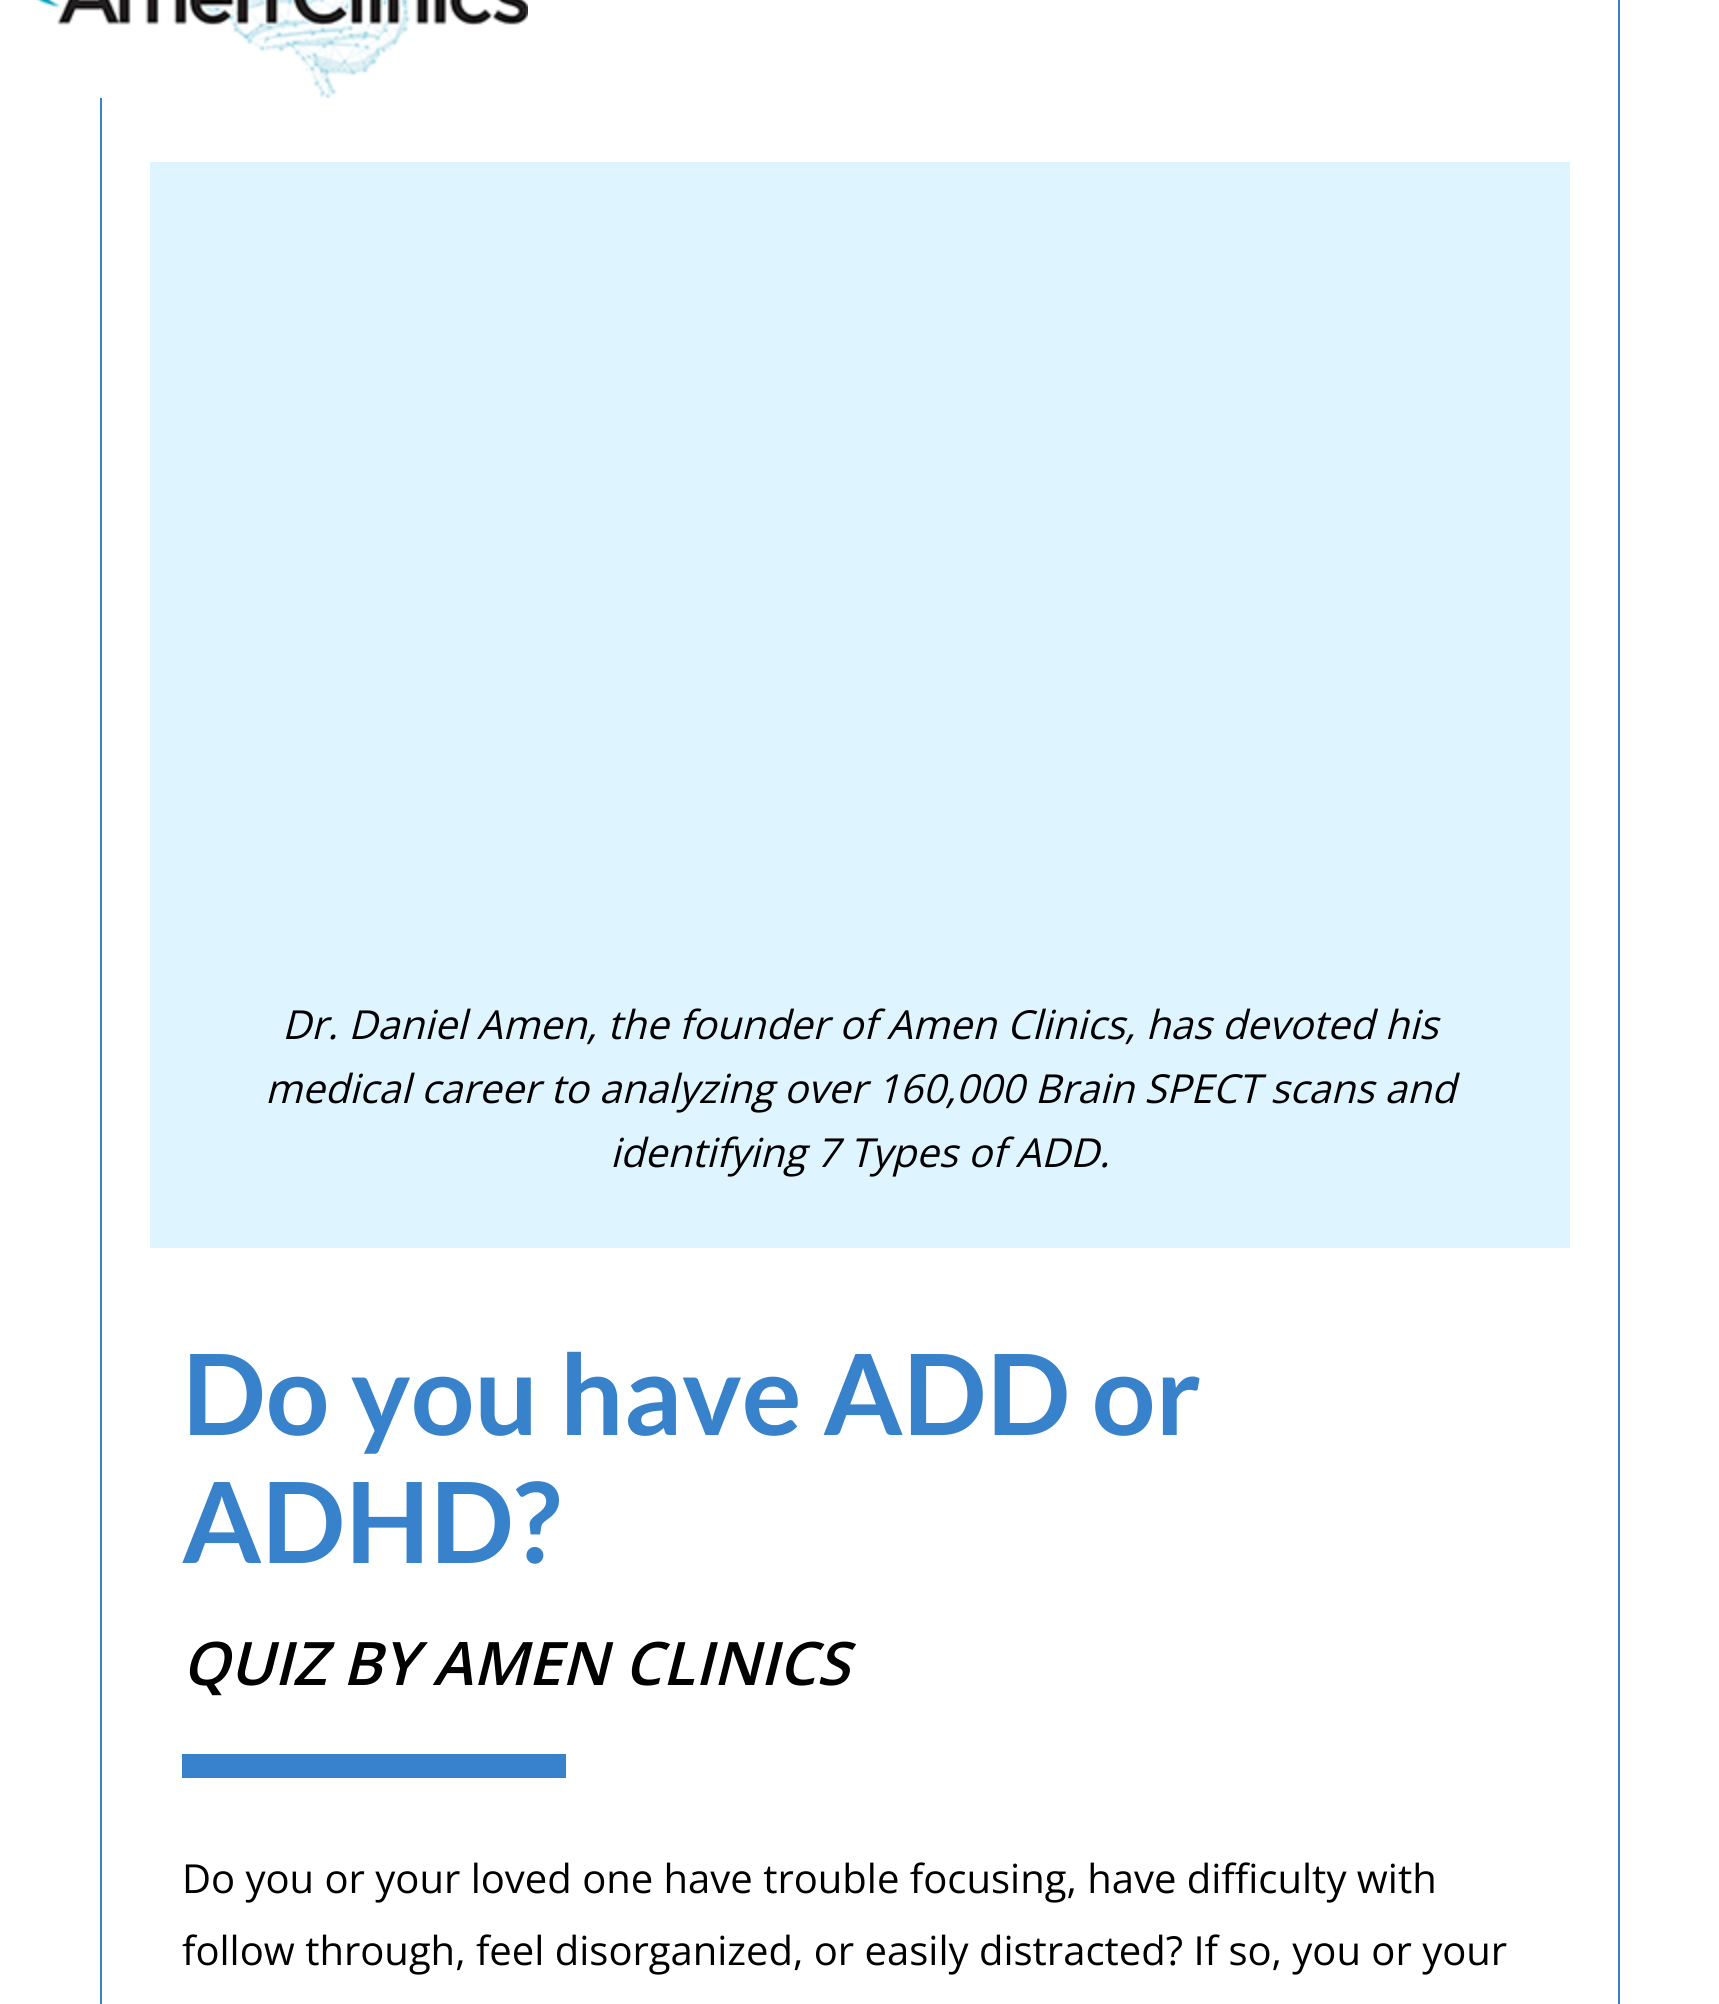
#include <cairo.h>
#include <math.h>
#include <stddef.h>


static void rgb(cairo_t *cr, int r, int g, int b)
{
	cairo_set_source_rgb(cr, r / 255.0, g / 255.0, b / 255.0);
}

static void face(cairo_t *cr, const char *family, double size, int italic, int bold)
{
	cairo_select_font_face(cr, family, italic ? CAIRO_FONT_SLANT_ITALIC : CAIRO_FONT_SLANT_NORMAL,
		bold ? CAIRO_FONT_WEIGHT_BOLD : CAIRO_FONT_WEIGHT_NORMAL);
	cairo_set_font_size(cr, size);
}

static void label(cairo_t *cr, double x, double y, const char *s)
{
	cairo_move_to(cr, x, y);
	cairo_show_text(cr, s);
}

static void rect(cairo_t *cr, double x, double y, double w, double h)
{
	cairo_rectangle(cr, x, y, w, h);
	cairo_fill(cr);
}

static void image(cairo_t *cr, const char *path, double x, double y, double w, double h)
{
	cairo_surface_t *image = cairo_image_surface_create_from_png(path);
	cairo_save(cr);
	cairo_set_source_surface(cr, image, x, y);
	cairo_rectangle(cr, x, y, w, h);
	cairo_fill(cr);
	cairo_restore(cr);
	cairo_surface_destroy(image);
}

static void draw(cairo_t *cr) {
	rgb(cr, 255, 255, 255);
	cairo_paint(cr);
	cairo_rectangle(cr, 101, -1, 1518, 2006);
	rgb(cr, 55, 130, 202);
	cairo_stroke(cr);
	image(cr, "image0.png", 36, 0, 492, 98);
	rgb(cr, 222, 244, 254);
	rect(cr, 150, 162, 1420, 1086);
	face(cr, "Open Sans", 40, 1, 0);
	rgb(cr, 0, 0, 0);
	label(cr, 282, 1039, "Dr. Daniel Amen, the founder of Amen Clinics, has devoted his");
	label(cr, 265, 1103, "medical career to analyzing over 160,000 Brain SPECT scans and");
	label(cr, 610, 1167, "identifying 7 Types of ADD.");
	face(cr, "Lato", 112, 0, 1);
	rgb(cr, 55, 130, 202);
	label(cr, 182, 1435, "Do you have ADD or");
	label(cr, 182, 1563, "ADHD?");
	face(cr, "Open Sans SemiBold", 60, 1, 0);
	rgb(cr, 0, 0, 0);
	label(cr, 182, 1685, "QUIZ BY AMEN CLINICS");
	rgb(cr, 55, 130, 202);
	rect(cr, 182, 1754, 384, 24);
	face(cr, "Open Sans", 40, 0, 0);
	rgb(cr, 0, 0, 0);
	label(cr, 182, 1893, "Do you or your loved one have trouble focusing, have difficulty with");
	label(cr, 182, 1965, "follow through, feel disorganized, or easily distracted? If so, you or your");
}

int main(void) {
	cairo_surface_t *surface = cairo_image_surface_create(CAIRO_FORMAT_RGB24, 1719, 2004);
	cairo_t *cr = cairo_create(surface);
	cairo_font_options_t *options = cairo_font_options_create();
	cairo_font_options_set_hint_metrics(options, CAIRO_HINT_METRICS_OFF);
	cairo_font_options_set_hint_style(options, CAIRO_HINT_STYLE_NONE);
	cairo_set_font_options(cr, options);
	cairo_set_miter_limit(cr, 4);
	draw(cr);
	cairo_surface_write_to_png(surface, "render.png");
	cairo_font_options_destroy(options);
	cairo_destroy(cr);
	cairo_surface_destroy(surface);
	return 0;
}
